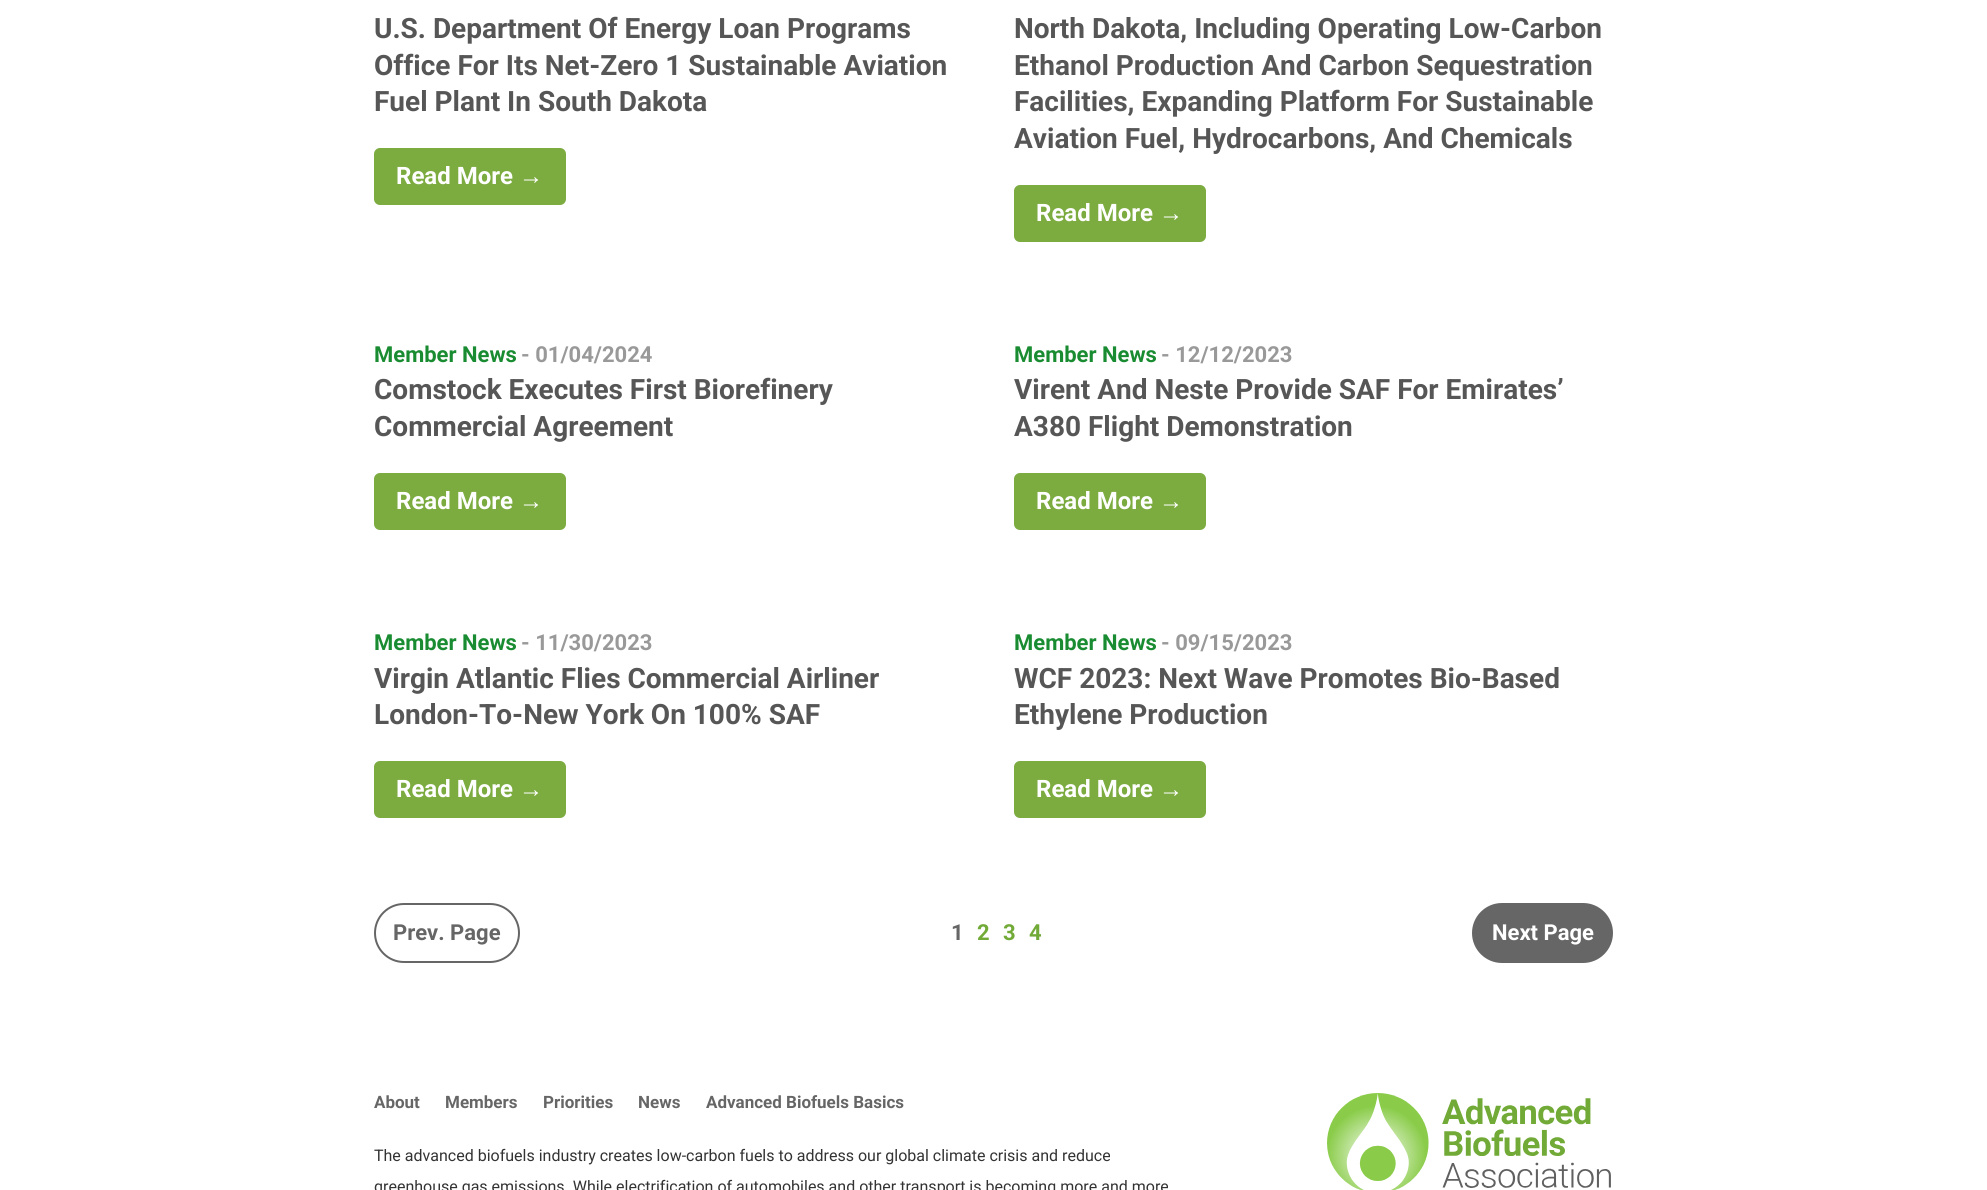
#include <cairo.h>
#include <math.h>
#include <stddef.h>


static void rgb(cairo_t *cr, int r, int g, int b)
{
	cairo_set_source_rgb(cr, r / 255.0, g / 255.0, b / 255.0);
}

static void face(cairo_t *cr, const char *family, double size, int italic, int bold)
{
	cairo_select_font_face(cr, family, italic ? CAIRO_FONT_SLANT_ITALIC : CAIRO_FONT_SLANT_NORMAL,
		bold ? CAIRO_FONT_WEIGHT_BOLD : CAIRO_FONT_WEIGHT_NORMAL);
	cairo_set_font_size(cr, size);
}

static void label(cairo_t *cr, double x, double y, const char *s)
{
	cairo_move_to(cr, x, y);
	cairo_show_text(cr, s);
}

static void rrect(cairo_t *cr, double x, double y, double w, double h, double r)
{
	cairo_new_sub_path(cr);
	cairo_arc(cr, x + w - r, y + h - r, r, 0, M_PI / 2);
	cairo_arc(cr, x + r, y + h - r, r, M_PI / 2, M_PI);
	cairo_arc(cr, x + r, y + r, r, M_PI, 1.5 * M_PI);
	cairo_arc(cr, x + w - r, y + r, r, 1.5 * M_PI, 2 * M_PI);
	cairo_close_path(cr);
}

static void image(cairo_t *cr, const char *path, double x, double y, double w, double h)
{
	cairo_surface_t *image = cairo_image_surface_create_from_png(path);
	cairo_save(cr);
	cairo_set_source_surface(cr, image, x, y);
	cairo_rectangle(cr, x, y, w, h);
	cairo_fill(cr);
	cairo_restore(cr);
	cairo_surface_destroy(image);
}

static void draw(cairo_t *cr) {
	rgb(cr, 255, 255, 255);
	cairo_paint(cr);
	face(cr, "Roboto", 28, 0, 1);
	rgb(cr, 86, 86, 86);
	label(cr, 374, 38, "U.S. Department Of Energy Loan Programs");
	label(cr, 374, 75, "Office For Its Net-Zero 1 Sustainable Aviation");
	label(cr, 374, 111, "Fuel Plant In South Dakota");
	rgb(cr, 124, 171, 64);
	rrect(cr, 374, 148, 192, 57, 6);
	cairo_fill(cr);
	face(cr, "Roboto", 24, 0, 1);
	rgb(cr, 255, 255, 255);
	label(cr, 396, 184, "Read More");
	face(cr, "Liberation Sans", 24, 0, 1);
	label(cr, 519, 184, "→");
	face(cr, "Roboto", 28, 0, 1);
	rgb(cr, 86, 86, 86);
	label(cr, 1014, 38, "North Dakota, Including Operating Low-Carbon");
	label(cr, 1014, 75, "Ethanol Production And Carbon Sequestration");
	label(cr, 1014, 111, "Facilities, Expanding Platform For Sustainable");
	label(cr, 1014, 148, "Aviation Fuel, Hydrocarbons, And Chemicals");
	rgb(cr, 124, 171, 64);
	rrect(cr, 1014, 185, 192, 57, 6);
	cairo_fill(cr);
	face(cr, "Roboto", 24, 0, 1);
	rgb(cr, 255, 255, 255);
	label(cr, 1036, 221, "Read More");
	face(cr, "Liberation Sans", 24, 0, 1);
	label(cr, 1159, 221, "→");
	face(cr, "Roboto", 22, 0, 1);
	rgb(cr, 25, 140, 50);
	label(cr, 374, 362, "Member News");
	rgb(cr, 153, 153, 153);
	label(cr, 521, 362, "- 01/04/2024");
	face(cr, "Roboto", 28, 0, 1);
	rgb(cr, 86, 86, 86);
	label(cr, 374, 399, "Comstock Executes First Biorefinery");
	label(cr, 374, 436, "Commercial Agreement");
	rgb(cr, 124, 171, 64);
	rrect(cr, 374, 473, 192, 57, 6);
	cairo_fill(cr);
	face(cr, "Roboto", 24, 0, 1);
	rgb(cr, 255, 255, 255);
	label(cr, 396, 509, "Read More");
	face(cr, "Liberation Sans", 24, 0, 1);
	label(cr, 519, 509, "→");
	face(cr, "Roboto", 22, 0, 1);
	rgb(cr, 25, 140, 50);
	label(cr, 1014, 362, "Member News");
	rgb(cr, 153, 153, 153);
	label(cr, 1161, 362, "- 12/12/2023");
	face(cr, "Roboto", 28, 0, 1);
	rgb(cr, 86, 86, 86);
	label(cr, 1014, 399, "Virent And Neste Provide SAF For Emirates’");
	label(cr, 1014, 436, "A380 Flight Demonstration");
	rgb(cr, 124, 171, 64);
	rrect(cr, 1014, 473, 192, 57, 6);
	cairo_fill(cr);
	face(cr, "Roboto", 24, 0, 1);
	rgb(cr, 255, 255, 255);
	label(cr, 1036, 509, "Read More");
	face(cr, "Liberation Sans", 24, 0, 1);
	label(cr, 1159, 509, "→");
	face(cr, "Roboto", 22, 0, 1);
	rgb(cr, 25, 140, 50);
	label(cr, 374, 650, "Member News");
	rgb(cr, 153, 153, 153);
	label(cr, 521, 650, "- 11/30/2023");
	face(cr, "Roboto", 28, 0, 1);
	rgb(cr, 86, 86, 86);
	label(cr, 374, 688, "Virgin Atlantic Flies Commercial Airliner");
	label(cr, 374, 724, "London-To-New York On 100% SAF");
	rgb(cr, 124, 171, 64);
	rrect(cr, 374, 761, 192, 57, 6);
	cairo_fill(cr);
	face(cr, "Roboto", 24, 0, 1);
	rgb(cr, 255, 255, 255);
	label(cr, 396, 797, "Read More");
	face(cr, "Liberation Sans", 24, 0, 1);
	label(cr, 519, 797, "→");
	face(cr, "Roboto", 22, 0, 1);
	rgb(cr, 25, 140, 50);
	label(cr, 1014, 650, "Member News");
	rgb(cr, 153, 153, 153);
	label(cr, 1161, 650, "- 09/15/2023");
	face(cr, "Roboto", 28, 0, 1);
	rgb(cr, 86, 86, 86);
	label(cr, 1014, 688, "WCF 2023: Next Wave Promotes Bio-Based");
	label(cr, 1014, 724, "Ethylene Production");
	rgb(cr, 124, 171, 64);
	rrect(cr, 1014, 761, 192, 57, 6);
	cairo_fill(cr);
	face(cr, "Roboto", 24, 0, 1);
	rgb(cr, 255, 255, 255);
	label(cr, 1036, 797, "Read More");
	face(cr, "Liberation Sans", 24, 0, 1);
	label(cr, 1159, 797, "→");
	rrect(cr, 375, 904, 144, 58, 29);
	rgb(cr, 102, 102, 102);
	cairo_stroke(cr);
	face(cr, "Roboto", 22, 0, 1);
	label(cr, 393, 940, "Prev. Page");
	label(cr, 951, 940, "1");
	rgb(cr, 114, 170, 55);
	label(cr, 977, 940, "2");
	label(cr, 1003, 940, "3");
	label(cr, 1029, 940, "4");
	rgb(cr, 102, 102, 102);
	rrect(cr, 1473, 904, 139, 58, 29);
	cairo_fill_preserve(cr);
	cairo_stroke(cr);
	rgb(cr, 255, 255, 255);
	label(cr, 1492, 940, "Next Page");
	face(cr, "Roboto", 17, 0, 1);
	rgb(cr, 102, 102, 102);
	label(cr, 374, 1108, "About");
	label(cr, 445, 1108, "Members");
	label(cr, 543, 1108, "Priorities");
	label(cr, 638, 1108, "News");
	label(cr, 706, 1108, "Advanced Biofuels Basics");
	face(cr, "Roboto", 16, 0, 0);
	rgb(cr, 51, 51, 51);
	label(cr, 374, 1161, "The advanced biofuels industry creates low-carbon fuels to address our global climate crisis and reduce");
	label(cr, 374, 1192, "greenhouse gas emissions. While electrification of automobiles and other transport is becoming more and more");
	image(cr, "image0.png", 1327, 1093, 284, 97);
}

int main(void) {
	cairo_surface_t *surface = cairo_image_surface_create(CAIRO_FORMAT_RGB24, 1987, 1190);
	cairo_t *cr = cairo_create(surface);
	cairo_font_options_t *options = cairo_font_options_create();
	cairo_font_options_set_hint_metrics(options, CAIRO_HINT_METRICS_OFF);
	cairo_font_options_set_hint_style(options, CAIRO_HINT_STYLE_NONE);
	cairo_set_font_options(cr, options);
	cairo_set_miter_limit(cr, 4);
	draw(cr);
	cairo_surface_write_to_png(surface, "render.png");
	cairo_font_options_destroy(options);
	cairo_destroy(cr);
	cairo_surface_destroy(surface);
	return 0;
}
